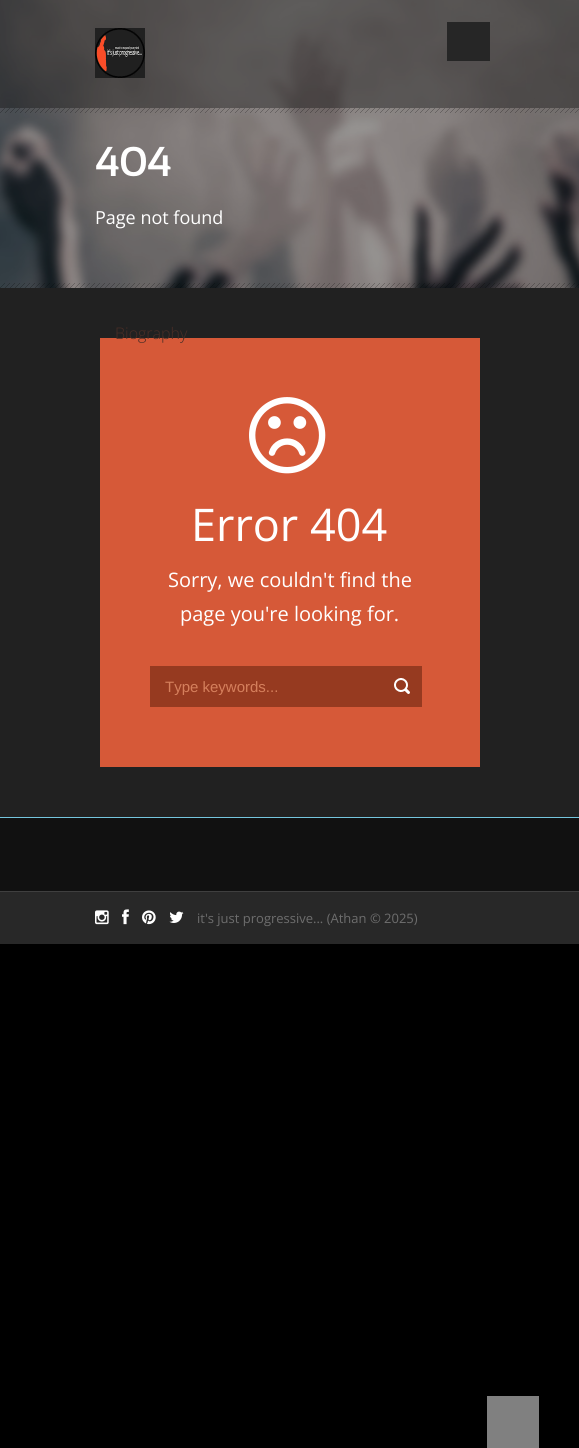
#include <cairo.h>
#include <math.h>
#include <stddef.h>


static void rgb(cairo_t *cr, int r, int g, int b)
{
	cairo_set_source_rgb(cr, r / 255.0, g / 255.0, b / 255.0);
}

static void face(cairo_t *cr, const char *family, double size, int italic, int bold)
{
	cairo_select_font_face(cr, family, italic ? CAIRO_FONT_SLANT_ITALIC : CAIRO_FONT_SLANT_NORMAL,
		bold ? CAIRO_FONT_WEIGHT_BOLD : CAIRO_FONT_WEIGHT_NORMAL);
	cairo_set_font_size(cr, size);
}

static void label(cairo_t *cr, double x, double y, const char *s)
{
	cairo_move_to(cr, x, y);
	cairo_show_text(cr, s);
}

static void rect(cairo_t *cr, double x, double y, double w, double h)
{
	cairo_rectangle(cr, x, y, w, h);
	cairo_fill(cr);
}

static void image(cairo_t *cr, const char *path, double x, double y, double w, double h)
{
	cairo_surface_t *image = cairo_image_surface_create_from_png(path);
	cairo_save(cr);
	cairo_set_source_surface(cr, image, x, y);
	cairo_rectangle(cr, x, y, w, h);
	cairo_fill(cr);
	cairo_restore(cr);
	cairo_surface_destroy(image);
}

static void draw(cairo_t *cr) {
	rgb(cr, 0, 0, 0);
	cairo_paint(cr);
	image(cr, "image0.png", 0, 0, 579, 288);
	face(cr, "Sansation", 40, 0, 1);
	rgb(cr, 255, 255, 255);
	label(cr, 95, 176, "404");
	face(cr, "Open Sans", 18, 0, 0);
	label(cr, 95, 224, "Page not found");
	image(cr, "image1.png", 0, 283, 579, 5);
	cairo_set_source_rgba(cr, 0.067, 0.067, 0.067, 0.4);
	rect(cr, 0, 0, 579, 108);
	image(cr, "image2.png", 0, 108, 579, 5);
	image(cr, "image3.png", 95, 28, 50, 50);
	rgb(cr, 38, 38, 38);
	rect(cr, 447, 22, 43, 39);
	rgb(cr, 33, 33, 33);
	rect(cr, 0, 288, 579, 529);
	rgb(cr, 214, 89, 56);
	rect(cr, 100, 338, 380, 429);
	face(cr, "Open Sans Light", 16, 0, 0);
	rgb(cr, 73, 45, 38);
	label(cr, 115, 339, "Biography");
	image(cr, "image4.png", 249, 397, 77, 77);
	face(cr, "Open Sans", 45, 0, 0);
	rgb(cr, 255, 255, 255);
	label(cr, 191, 541, "Error 404");
	face(cr, "Open Sans", 20, 0, 0);
	label(cr, 168, 587, "Sorry, we couldn't find the");
	label(cr, 180, 621, "page you're looking for.");
	rgb(cr, 150, 58, 32);
	rect(cr, 150, 666, 272, 41);
	cairo_save(cr);
	cairo_rectangle(cr, 165, 678, 242, 17);
	cairo_clip(cr);
	face(cr, "Liberation Sans", 15, 0, 0);
	rgb(cr, 213, 127, 92);
	label(cr, 165, 692, "Type keywords...");
	cairo_restore(cr);
	image(cr, "image5.png", 394, 678, 16, 16);
	rgb(cr, 17, 17, 17);
	rect(cr, 0, 818, 579, 73);
	rgb(cr, 116, 198, 222);
	rect(cr, 0, 817, 579, 1);
	rgb(cr, 40, 40, 40);
	rect(cr, 0, 892, 579, 52);
	rgb(cr, 63, 63, 63);
	rect(cr, 0, 891, 579, 1);
	image(cr, "image6.png", 95, 910, 14, 15);
	image(cr, "image7.png", 122, 909, 7, 16);
	image(cr, "image8.png", 142, 910, 14, 15);
	image(cr, "image9.png", 169, 911, 15, 12);
	face(cr, "Open Sans", 13, 0, 0);
	rgb(cr, 109, 109, 109);
	label(cr, 197, 923, "it's just progressive... (Athan © 2025)");
	rgb(cr, 128, 128, 128);
	rect(cr, 487, 1396, 52, 52);
}

int main(void) {
	cairo_surface_t *surface = cairo_image_surface_create(CAIRO_FORMAT_RGB24, 579, 1448);
	cairo_t *cr = cairo_create(surface);
	cairo_font_options_t *options = cairo_font_options_create();
	cairo_font_options_set_hint_metrics(options, CAIRO_HINT_METRICS_OFF);
	cairo_font_options_set_hint_style(options, CAIRO_HINT_STYLE_NONE);
	cairo_set_font_options(cr, options);
	cairo_set_miter_limit(cr, 4);
	draw(cr);
	cairo_surface_write_to_png(surface, "render.png");
	cairo_font_options_destroy(options);
	cairo_destroy(cr);
	cairo_surface_destroy(surface);
	return 0;
}
